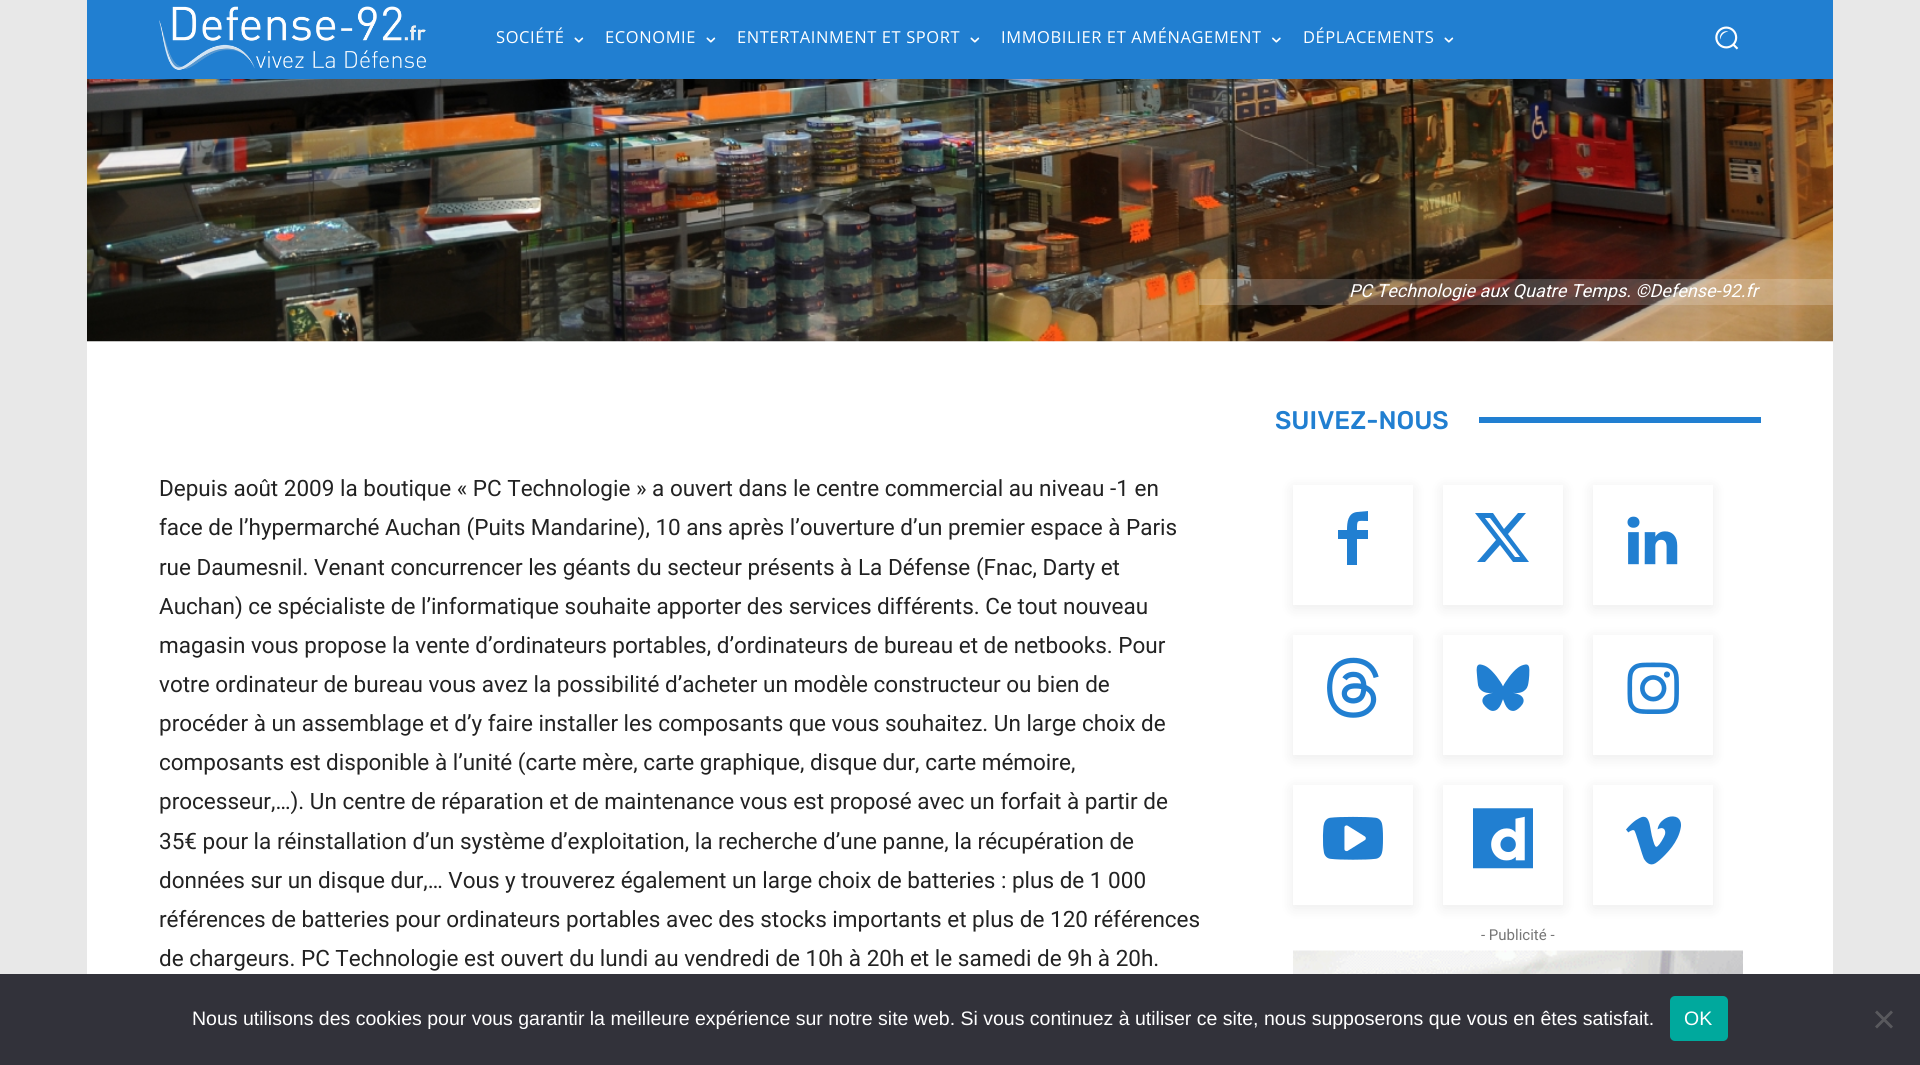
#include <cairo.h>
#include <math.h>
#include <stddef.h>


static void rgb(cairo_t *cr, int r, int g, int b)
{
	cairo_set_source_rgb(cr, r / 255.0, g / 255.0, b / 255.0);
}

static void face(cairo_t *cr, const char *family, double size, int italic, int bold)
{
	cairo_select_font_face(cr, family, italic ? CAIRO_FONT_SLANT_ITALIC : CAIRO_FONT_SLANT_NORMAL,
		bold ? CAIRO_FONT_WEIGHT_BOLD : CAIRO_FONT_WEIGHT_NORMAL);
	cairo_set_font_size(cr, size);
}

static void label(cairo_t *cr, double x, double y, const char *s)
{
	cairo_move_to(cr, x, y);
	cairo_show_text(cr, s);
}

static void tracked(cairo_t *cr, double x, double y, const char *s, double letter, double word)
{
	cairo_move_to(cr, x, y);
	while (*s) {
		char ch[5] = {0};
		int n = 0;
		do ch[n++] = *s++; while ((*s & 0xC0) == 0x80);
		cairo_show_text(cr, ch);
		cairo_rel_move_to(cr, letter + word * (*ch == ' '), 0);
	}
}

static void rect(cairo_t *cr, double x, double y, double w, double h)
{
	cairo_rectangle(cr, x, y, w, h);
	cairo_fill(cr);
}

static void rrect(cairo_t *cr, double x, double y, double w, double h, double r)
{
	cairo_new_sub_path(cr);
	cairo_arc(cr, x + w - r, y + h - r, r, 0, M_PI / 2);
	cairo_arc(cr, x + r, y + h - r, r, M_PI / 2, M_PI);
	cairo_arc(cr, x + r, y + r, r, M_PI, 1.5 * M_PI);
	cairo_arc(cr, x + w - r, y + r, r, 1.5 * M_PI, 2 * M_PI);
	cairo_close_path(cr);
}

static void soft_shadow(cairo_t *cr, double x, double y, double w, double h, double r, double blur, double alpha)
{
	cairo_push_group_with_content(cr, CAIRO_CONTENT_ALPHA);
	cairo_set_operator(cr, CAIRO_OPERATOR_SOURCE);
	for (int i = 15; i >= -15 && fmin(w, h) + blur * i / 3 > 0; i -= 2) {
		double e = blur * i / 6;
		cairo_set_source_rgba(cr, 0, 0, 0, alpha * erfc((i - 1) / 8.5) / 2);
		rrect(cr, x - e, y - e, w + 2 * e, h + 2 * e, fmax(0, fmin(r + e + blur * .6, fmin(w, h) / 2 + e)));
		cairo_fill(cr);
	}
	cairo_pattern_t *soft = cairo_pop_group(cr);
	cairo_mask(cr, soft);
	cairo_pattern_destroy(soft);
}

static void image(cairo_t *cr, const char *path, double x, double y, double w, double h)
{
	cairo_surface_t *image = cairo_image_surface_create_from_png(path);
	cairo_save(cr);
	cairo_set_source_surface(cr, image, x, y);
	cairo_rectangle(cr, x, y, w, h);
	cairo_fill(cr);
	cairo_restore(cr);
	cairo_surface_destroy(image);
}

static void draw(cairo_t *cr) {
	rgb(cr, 232, 232, 232);
	cairo_paint(cr);
	rgb(cr, 33, 127, 209);
	rect(cr, 87, 0, 1746, 79);
	image(cr, "image0.png", 159, 6, 268, 64);
	face(cr, "Open Sans", 16.5, 0, 0);
	rgb(cr, 255, 255, 255);
	tracked(cr, 496, 43, "SOCIÉTÉ", 0.6, 0);
	image(cr, "image1.png", 574, 37, 10, 6);
	tracked(cr, 605, 43, "ECONOMIE", 0.6, 0);
	image(cr, "image1.png", 706, 37, 10, 6);
	tracked(cr, 737, 43, "ENTERTAINMENT ET SPORT", 0.6, 0);
	image(cr, "image1.png", 970, 37, 10, 6);
	tracked(cr, 1001, 43, "IMMOBILIER ET AMÉNAGEMENT", 0.6, 0);
	image(cr, "image2.png", 1272, 37, 9, 6);
	tracked(cr, 1303, 43, "DÉPLACEMENTS", 0.6, 0);
	image(cr, "image1.png", 1444, 37, 10, 6);
	image(cr, "image3.png", 1715, 26, 24, 24);
	rect(cr, 87, 341, 1746, 633);
	image(cr, "image4.png", 87, 79, 1746, 263);
	cairo_set_source_rgba(cr, 1, 1, 1, 0.1);
	rect(cr, 1199, 279, 634, 26);
	rect(cr, 1199, 279, 634, 26);
	face(cr, "Roboto", 18, 1, 0);
	rgb(cr, 255, 255, 255);
	label(cr, 1349, 297, "PC Technologie aux Quatre Temps. ©Defense-92.fr");
	face(cr, "Roboto", 22.5, 0, 0);
	rgb(cr, 34, 34, 34);
	label(cr, 159, 496, "Depuis août 2009 la boutique « PC Technologie » a ouvert dans le centre commercial au niveau -1 en");
	label(cr, 159, 535, "face de l’hypermarché Auchan (Puits Mandarine), 10 ans après l’ouverture d’un premier espace à Paris");
	label(cr, 159, 575, "rue Daumesnil. Venant concurrencer les géants du secteur présents à La Défense (Fnac, Darty et");
	label(cr, 159, 614, "Auchan) ce spécialiste de l’informatique souhaite apporter des services différents. Ce tout nouveau");
	label(cr, 159, 653, "magasin vous propose la vente d’ordinateurs portables, d’ordinateurs de bureau et de netbooks. Pour");
	label(cr, 159, 692, "votre ordinateur de bureau vous avez la possibilité d’acheter un modèle constructeur ou bien de");
	label(cr, 159, 731, "procéder à un assemblage et d’y faire installer les composants que vous souhaitez. Un large choix de");
	label(cr, 159, 770, "composants est disponible à l’unité (carte mère, carte graphique, disque dur, carte mémoire,");
	label(cr, 159, 809, "processeur,…). Un centre de réparation et de maintenance vous est proposé avec un forfait à partir de");
	label(cr, 159, 849, "35€ pour la réinstallation d’un système d’exploitation, la recherche d’une panne, la récupération de");
	label(cr, 159, 888, "données sur un disque dur,… Vous y trouverez également un large choix de batteries : plus de 1 000");
	label(cr, 159, 927, "références de batteries pour ordinateurs portables avec des stocks importants et plus de 120 références");
	label(cr, 159, 966, "de chargeurs. PC Technologie est ouvert du lundi au vendredi de 10h à 20h et le samedi de 9h à 20h.");
	face(cr, "Rubik Medium", 25.5, 0, 0);
	rgb(cr, 33, 127, 209);
	label(cr, 1275, 429, "SUIVEZ-NOUS");
	rect(cr, 1479, 417, 282, 6);
	cairo_save(cr);
	cairo_set_fill_rule(cr, CAIRO_FILL_RULE_EVEN_ODD);
	cairo_new_path(cr);
	cairo_move_to(cr, 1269, 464);
	cairo_line_to(cr, 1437, 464);
	cairo_line_to(cr, 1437, 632);
	cairo_line_to(cr, 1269, 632);
	cairo_close_path(cr);
	cairo_move_to(cr, 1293, 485);
	cairo_line_to(cr, 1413, 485);
	cairo_line_to(cr, 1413, 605);
	cairo_line_to(cr, 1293, 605);
	cairo_close_path(cr);
	cairo_clip(cr);
	rgb(cr, 0, 0, 0);
	soft_shadow(cr, 1293, 488, 120, 120, 0, 7.5, 0.08);
	cairo_restore(cr);
	cairo_new_path(cr);
	cairo_move_to(cr, 1368, 521);
	cairo_curve_to(cr, 1357, 521, 1357, 519, 1357, 530);
	cairo_line_to(cr, 1368, 530);
	cairo_line_to(cr, 1368, 539);
	cairo_line_to(cr, 1357, 539);
	cairo_line_to(cr, 1357, 565);
	cairo_line_to(cr, 1347, 565);
	cairo_line_to(cr, 1347, 539);
	cairo_line_to(cr, 1338, 539);
	cairo_line_to(cr, 1338, 530);
	cairo_line_to(cr, 1347, 530);
	cairo_curve_to(cr, 1347, 522, 1348, 513, 1357, 512);
	cairo_line_to(cr, 1368, 511);
	cairo_close_path(cr);
	cairo_fill(cr);
	cairo_save(cr);
	cairo_set_fill_rule(cr, CAIRO_FILL_RULE_EVEN_ODD);
	cairo_new_path(cr);
	cairo_move_to(cr, 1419, 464);
	cairo_line_to(cr, 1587, 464);
	cairo_line_to(cr, 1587, 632);
	cairo_line_to(cr, 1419, 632);
	cairo_close_path(cr);
	cairo_move_to(cr, 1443, 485);
	cairo_line_to(cr, 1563, 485);
	cairo_line_to(cr, 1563, 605);
	cairo_line_to(cr, 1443, 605);
	cairo_close_path(cr);
	cairo_clip(cr);
	rgb(cr, 0, 0, 0);
	soft_shadow(cr, 1443, 488, 120, 120, 0, 7.5, 0.08);
	cairo_restore(cr);
	cairo_new_path(cr);
	cairo_move_to(cr, 1518, 513);
	cairo_line_to(cr, 1526, 513);
	cairo_line_to(cr, 1508, 534);
	cairo_line_to(cr, 1529, 562);
	cairo_line_to(cr, 1513, 562);
	cairo_line_to(cr, 1500, 545);
	cairo_line_to(cr, 1485, 562);
	cairo_line_to(cr, 1477, 562);
	cairo_line_to(cr, 1496, 540);
	cairo_line_to(cr, 1475, 513);
	cairo_line_to(cr, 1493, 513);
	cairo_line_to(cr, 1504, 529);
	cairo_close_path(cr);
	cairo_move_to(cr, 1515, 557);
	cairo_line_to(cr, 1520, 557);
	cairo_line_to(cr, 1490, 518);
	cairo_line_to(cr, 1485, 518);
	cairo_close_path(cr);
	cairo_fill(cr);
	cairo_save(cr);
	cairo_set_fill_rule(cr, CAIRO_FILL_RULE_EVEN_ODD);
	cairo_new_path(cr);
	cairo_move_to(cr, 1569, 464);
	cairo_line_to(cr, 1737, 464);
	cairo_line_to(cr, 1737, 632);
	cairo_line_to(cr, 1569, 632);
	cairo_close_path(cr);
	cairo_move_to(cr, 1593, 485);
	cairo_line_to(cr, 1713, 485);
	cairo_line_to(cr, 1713, 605);
	cairo_line_to(cr, 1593, 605);
	cairo_close_path(cr);
	cairo_clip(cr);
	rgb(cr, 0, 0, 0);
	soft_shadow(cr, 1593, 488, 120, 120, 0, 7.5, 0.08);
	cairo_restore(cr);
	image(cr, "image5.png", 1627, 516, 51, 49);
	cairo_save(cr);
	cairo_set_fill_rule(cr, CAIRO_FILL_RULE_EVEN_ODD);
	cairo_new_path(cr);
	cairo_move_to(cr, 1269, 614);
	cairo_line_to(cr, 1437, 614);
	cairo_line_to(cr, 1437, 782);
	cairo_line_to(cr, 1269, 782);
	cairo_close_path(cr);
	cairo_move_to(cr, 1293, 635);
	cairo_line_to(cr, 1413, 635);
	cairo_line_to(cr, 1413, 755);
	cairo_line_to(cr, 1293, 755);
	cairo_close_path(cr);
	cairo_clip(cr);
	rgb(cr, 0, 0, 0);
	soft_shadow(cr, 1293, 638, 120, 120, 0, 7.5, 0.08);
	cairo_restore(cr);
	image(cr, "image6.png", 1327, 657, 52, 61);
	cairo_save(cr);
	cairo_set_fill_rule(cr, CAIRO_FILL_RULE_EVEN_ODD);
	cairo_new_path(cr);
	cairo_move_to(cr, 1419, 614);
	cairo_line_to(cr, 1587, 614);
	cairo_line_to(cr, 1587, 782);
	cairo_line_to(cr, 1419, 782);
	cairo_close_path(cr);
	cairo_move_to(cr, 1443, 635);
	cairo_line_to(cr, 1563, 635);
	cairo_line_to(cr, 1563, 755);
	cairo_line_to(cr, 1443, 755);
	cairo_close_path(cr);
	cairo_clip(cr);
	rgb(cr, 0, 0, 0);
	soft_shadow(cr, 1443, 638, 120, 120, 0, 7.5, 0.08);
	cairo_restore(cr);
	image(cr, "image7.png", 1476, 664, 54, 47);
	cairo_save(cr);
	cairo_set_fill_rule(cr, CAIRO_FILL_RULE_EVEN_ODD);
	cairo_new_path(cr);
	cairo_move_to(cr, 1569, 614);
	cairo_line_to(cr, 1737, 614);
	cairo_line_to(cr, 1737, 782);
	cairo_line_to(cr, 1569, 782);
	cairo_close_path(cr);
	cairo_move_to(cr, 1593, 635);
	cairo_line_to(cr, 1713, 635);
	cairo_line_to(cr, 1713, 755);
	cairo_line_to(cr, 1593, 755);
	cairo_close_path(cr);
	cairo_clip(cr);
	rgb(cr, 0, 0, 0);
	soft_shadow(cr, 1593, 638, 120, 120, 0, 7.5, 0.08);
	cairo_restore(cr);
	image(cr, "image8.png", 1627, 662, 52, 52);
	cairo_save(cr);
	cairo_set_fill_rule(cr, CAIRO_FILL_RULE_EVEN_ODD);
	cairo_new_path(cr);
	cairo_move_to(cr, 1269, 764);
	cairo_line_to(cr, 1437, 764);
	cairo_line_to(cr, 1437, 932);
	cairo_line_to(cr, 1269, 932);
	cairo_close_path(cr);
	cairo_move_to(cr, 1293, 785);
	cairo_line_to(cr, 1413, 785);
	cairo_line_to(cr, 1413, 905);
	cairo_line_to(cr, 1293, 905);
	cairo_close_path(cr);
	cairo_clip(cr);
	rgb(cr, 0, 0, 0);
	soft_shadow(cr, 1293, 788, 120, 120, 0, 7.5, 0.08);
	cairo_restore(cr);
	image(cr, "image9.png", 1322, 816, 61, 44);
	cairo_save(cr);
	cairo_set_fill_rule(cr, CAIRO_FILL_RULE_EVEN_ODD);
	cairo_new_path(cr);
	cairo_move_to(cr, 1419, 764);
	cairo_line_to(cr, 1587, 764);
	cairo_line_to(cr, 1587, 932);
	cairo_line_to(cr, 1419, 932);
	cairo_close_path(cr);
	cairo_move_to(cr, 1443, 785);
	cairo_line_to(cr, 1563, 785);
	cairo_line_to(cr, 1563, 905);
	cairo_line_to(cr, 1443, 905);
	cairo_close_path(cr);
	cairo_clip(cr);
	rgb(cr, 0, 0, 0);
	soft_shadow(cr, 1443, 788, 120, 120, 0, 7.5, 0.08);
	cairo_restore(cr);
	image(cr, "image10.png", 1473, 808, 60, 61);
	cairo_save(cr);
	cairo_set_fill_rule(cr, CAIRO_FILL_RULE_EVEN_ODD);
	cairo_new_path(cr);
	cairo_move_to(cr, 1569, 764);
	cairo_line_to(cr, 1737, 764);
	cairo_line_to(cr, 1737, 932);
	cairo_line_to(cr, 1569, 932);
	cairo_close_path(cr);
	cairo_move_to(cr, 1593, 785);
	cairo_line_to(cr, 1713, 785);
	cairo_line_to(cr, 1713, 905);
	cairo_line_to(cr, 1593, 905);
	cairo_close_path(cr);
	cairo_clip(cr);
	rgb(cr, 0, 0, 0);
	soft_shadow(cr, 1593, 788, 120, 120, 0, 7.5, 0.08);
	cairo_restore(cr);
	image(cr, "image11.png", 1626, 816, 55, 49);
	face(cr, "Roboto", 15, 0, 0);
	rgb(cr, 118, 118, 118);
	label(cr, 1481, 940, "- Publicité -");
	image(cr, "image12.png", 1293, 950, 450, 24);
	rgb(cr, 50, 50, 58);
	rect(cr, 0, 974, 1920, 91);
	face(cr, "Liberation Sans", 19.5, 0, 0);
	rgb(cr, 255, 255, 255);
	label(cr, 192, 1025, "Nous utilisons des cookies pour vous garantir la meilleure expérience sur notre site web. Si vous continuez à utiliser ce site, nous supposerons que vous en êtes satisfait.");
	rgb(cr, 0, 169, 157);
	rrect(cr, 1670, 996, 58, 45, 5);
	cairo_fill(cr);
	rgb(cr, 255, 255, 255);
	label(cr, 1684, 1025, "OK");
	rgb(cr, 89, 89, 93);
	cairo_new_path(cr);
	cairo_move_to(cr, 1891, 1010.5);
	cairo_line_to(cr, 1893, 1012.5);
	cairo_line_to(cr, 1877, 1028.5);
	cairo_line_to(cr, 1875, 1026.5);
	cairo_close_path(cr);
	cairo_fill(cr);
	cairo_new_path(cr);
	cairo_move_to(cr, 1875, 1012.5);
	cairo_line_to(cr, 1877, 1010.5);
	cairo_line_to(cr, 1893, 1026.5);
	cairo_line_to(cr, 1891, 1028.5);
	cairo_close_path(cr);
	cairo_fill(cr);
}

int main(void) {
	cairo_surface_t *surface = cairo_image_surface_create(CAIRO_FORMAT_RGB24, 1920, 1065);
	cairo_t *cr = cairo_create(surface);
	cairo_font_options_t *options = cairo_font_options_create();
	cairo_font_options_set_hint_metrics(options, CAIRO_HINT_METRICS_OFF);
	cairo_font_options_set_hint_style(options, CAIRO_HINT_STYLE_NONE);
	cairo_set_font_options(cr, options);
	cairo_set_miter_limit(cr, 4);
	draw(cr);
	cairo_surface_write_to_png(surface, "render.png");
	cairo_font_options_destroy(options);
	cairo_destroy(cr);
	cairo_surface_destroy(surface);
	return 0;
}
